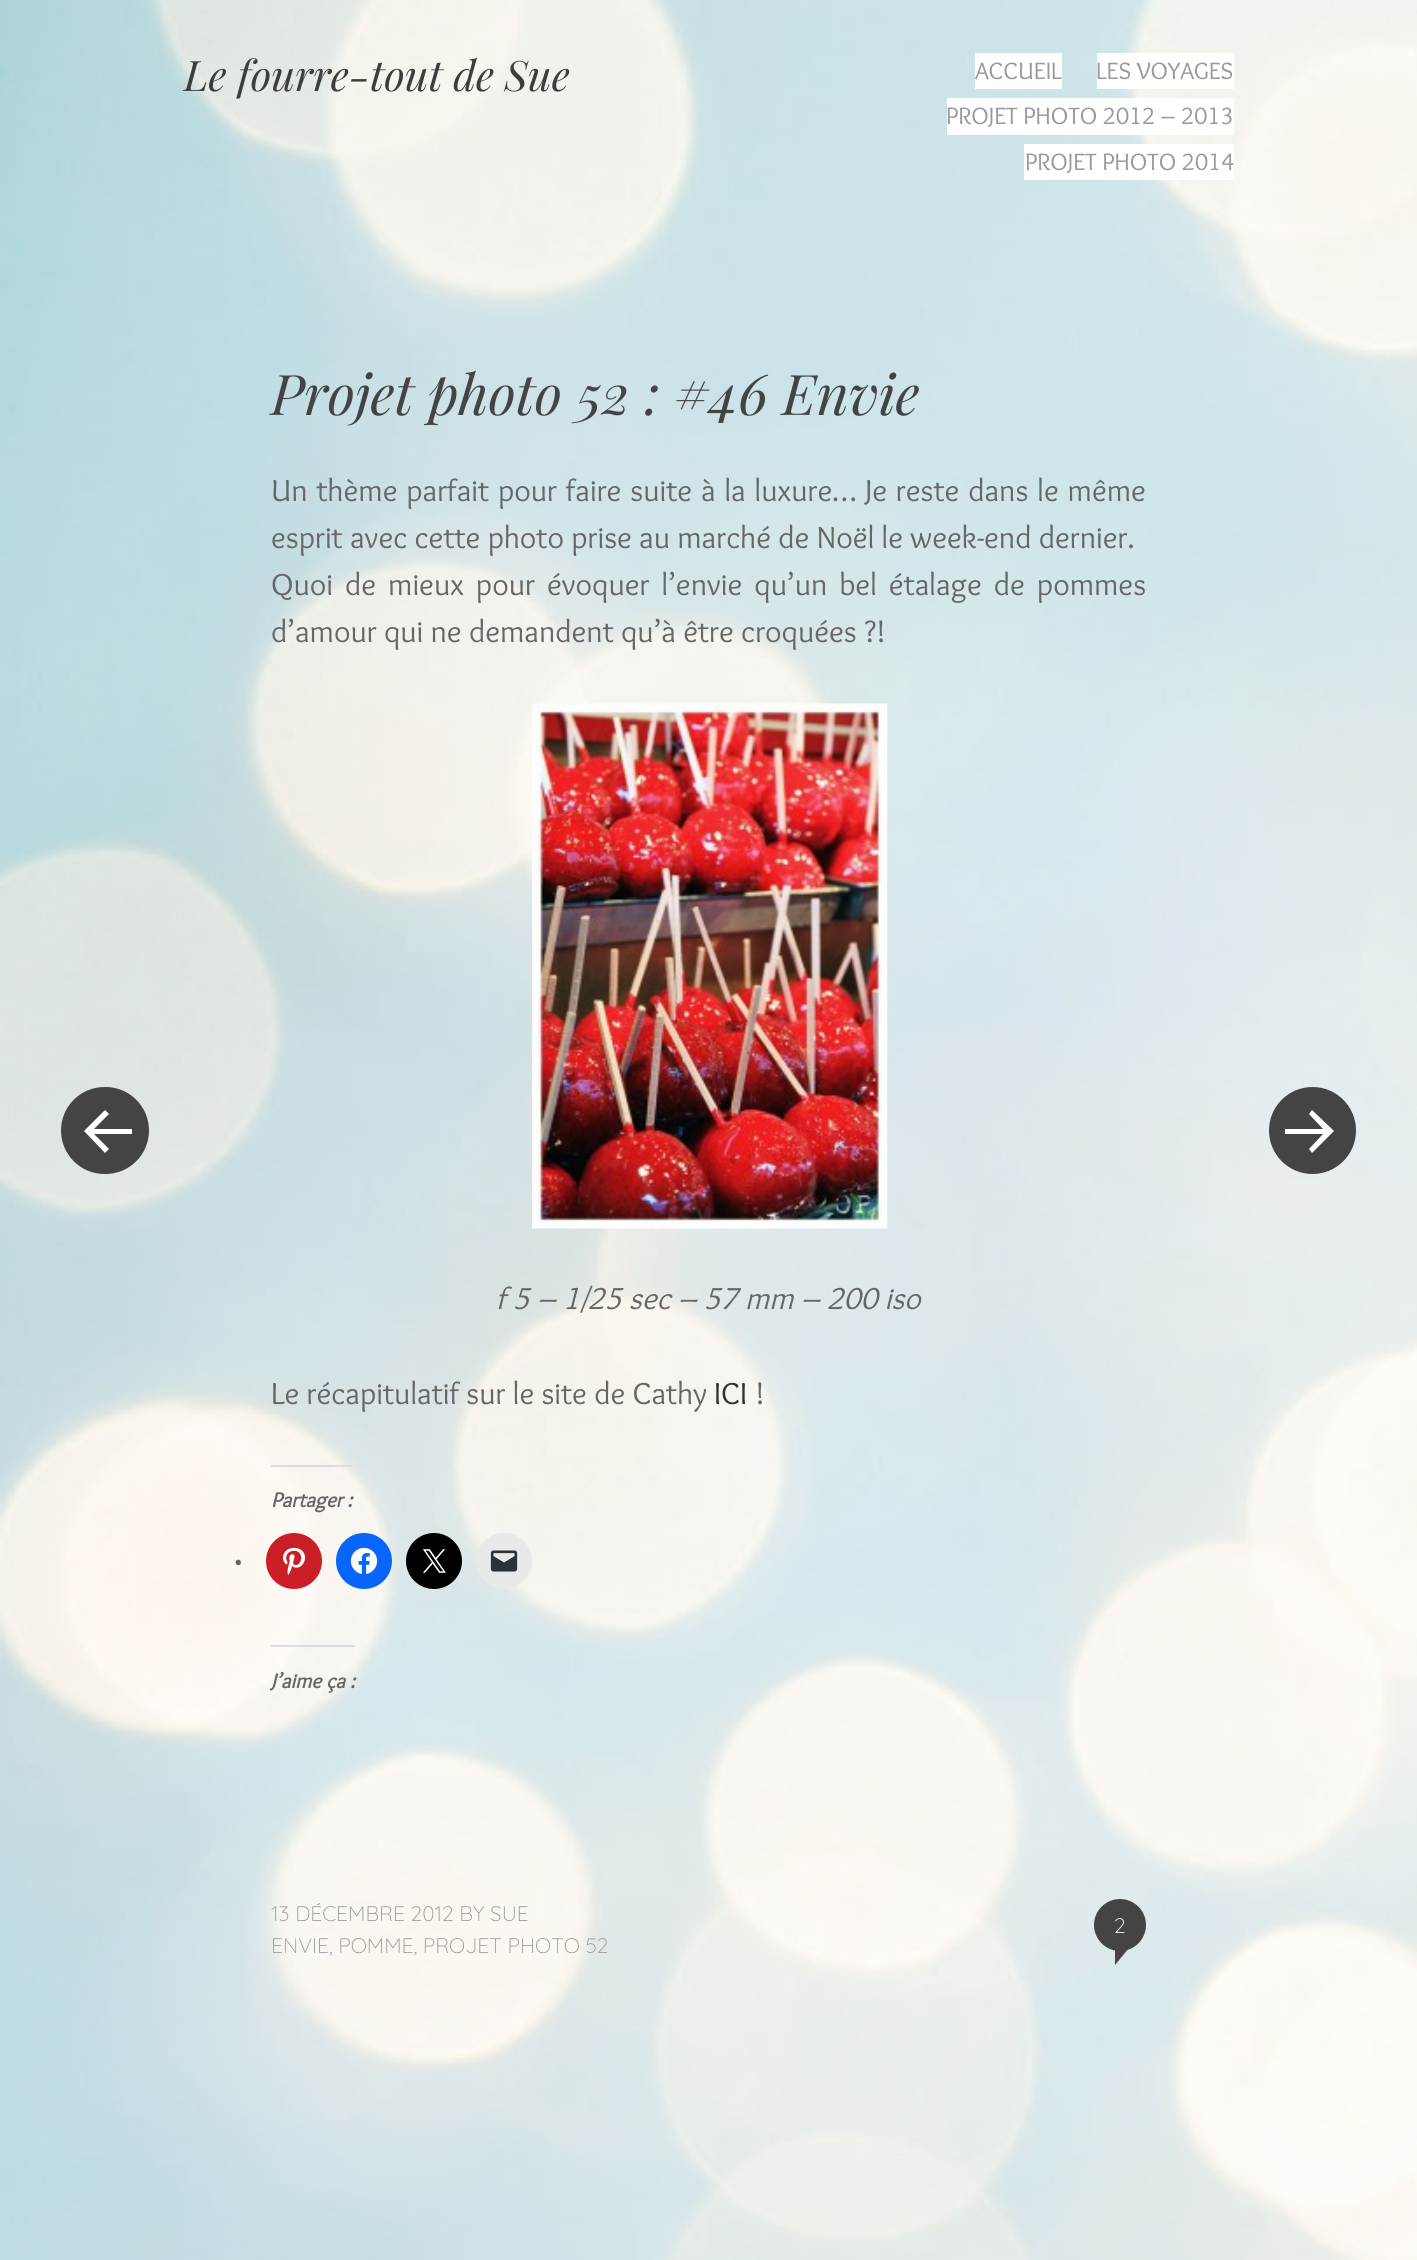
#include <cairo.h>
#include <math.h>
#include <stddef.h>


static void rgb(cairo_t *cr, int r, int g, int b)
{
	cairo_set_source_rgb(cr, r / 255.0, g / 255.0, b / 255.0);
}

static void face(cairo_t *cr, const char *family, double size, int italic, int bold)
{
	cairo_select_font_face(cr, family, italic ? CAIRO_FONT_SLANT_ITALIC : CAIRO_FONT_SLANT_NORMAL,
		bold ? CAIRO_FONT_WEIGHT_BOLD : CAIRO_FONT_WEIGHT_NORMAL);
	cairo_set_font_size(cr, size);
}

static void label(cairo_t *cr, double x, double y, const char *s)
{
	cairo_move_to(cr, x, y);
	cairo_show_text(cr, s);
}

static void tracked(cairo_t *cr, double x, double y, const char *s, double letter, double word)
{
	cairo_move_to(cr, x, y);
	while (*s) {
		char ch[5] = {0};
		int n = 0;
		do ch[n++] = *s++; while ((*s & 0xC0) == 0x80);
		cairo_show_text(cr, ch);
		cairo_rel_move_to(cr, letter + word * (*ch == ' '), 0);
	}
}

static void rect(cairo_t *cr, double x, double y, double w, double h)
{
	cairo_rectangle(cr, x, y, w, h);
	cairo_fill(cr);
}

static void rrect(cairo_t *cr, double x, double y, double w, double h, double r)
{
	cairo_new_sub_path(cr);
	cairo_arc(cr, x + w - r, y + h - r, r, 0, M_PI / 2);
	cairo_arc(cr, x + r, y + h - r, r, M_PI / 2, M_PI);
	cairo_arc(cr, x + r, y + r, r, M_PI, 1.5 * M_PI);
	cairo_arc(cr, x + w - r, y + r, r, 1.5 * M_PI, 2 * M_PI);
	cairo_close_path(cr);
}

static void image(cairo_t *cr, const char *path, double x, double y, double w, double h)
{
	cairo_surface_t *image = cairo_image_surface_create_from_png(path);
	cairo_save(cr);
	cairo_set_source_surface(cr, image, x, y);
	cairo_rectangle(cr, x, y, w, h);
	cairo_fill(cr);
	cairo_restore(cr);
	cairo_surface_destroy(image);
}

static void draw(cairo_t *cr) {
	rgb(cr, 255, 255, 255);
	cairo_paint(cr);
	image(cr, "image0.png", 0, 0, 1417, 2260);
	face(cr, "Playfair Display", 42, 1, 0);
	rgb(cr, 61, 61, 61);
	label(cr, 184, 91, "Le fourre-tout de Sue");
	rgb(cr, 255, 255, 255);
	rect(cr, 975, 53, 87, 36);
	face(cr, "Overlock", 24.5, 0, 0);
	rgb(cr, 153, 153, 153);
	label(cr, 975, 79, "ACCUEIL");
	rgb(cr, 255, 255, 255);
	rect(cr, 1097, 53, 137, 36);
	rgb(cr, 153, 153, 153);
	label(cr, 1096, 79, "LES VOYAGES");
	rgb(cr, 255, 255, 255);
	rect(cr, 947, 98, 287, 37);
	rgb(cr, 153, 153, 153);
	label(cr, 946, 124, "PROJET PHOTO 2012 – 2013");
	rgb(cr, 255, 255, 255);
	rect(cr, 1024, 144, 210, 36);
	rgb(cr, 153, 153, 153);
	label(cr, 1025, 170, "PROJET PHOTO 2014");
	face(cr, "Playfair Display", 56, 1, 0);
	rgb(cr, 68, 68, 68);
	label(cr, 271, 415, "Projet photo 52 : #46 Envie");
	face(cr, "Overlock", 31.5, 0, 0);
	rgb(cr, 102, 102, 102);
	tracked(cr, 271, 501, "Un thème parfait pour faire suite à la luxure… Je reste dans le même", 0, 1.6);
	label(cr, 271, 548, "esprit avec cette photo prise au marché de Noël le week-end dernier.");
	tracked(cr, 271, 595, "Quoi de mieux pour évoquer l’envie qu’un bel étalage de pommes", 0, 4.75);
	label(cr, 271, 642, "d’amour qui ne demandent qu’à être croquées ?!");
	image(cr, "image1.png", 532, 703, 356, 526);
	face(cr, "Overlock", 31.5, 1, 0);
	label(cr, 496, 1309, "f 5 – 1/25 sec – 57 mm – 200 iso");
	face(cr, "Overlock", 31.5, 0, 0);
	label(cr, 271, 1404, "Le récapitulatif sur le site de Cathy");
	rgb(cr, 51, 51, 51);
	label(cr, 714, 1404, "ICI");
	rgb(cr, 102, 102, 102);
	label(cr, 755, 1404, "!");
	rgb(cr, 220, 220, 222);
	rect(cr, 271, 1465, 81, 2);
	face(cr, "Overlock", 21, 1, 1);
	rgb(cr, 102, 102, 102);
	label(cr, 271, 1507, "Partager :");
	face(cr, "Overlock", 24.5, 0, 0);
	label(cr, 235, 1569, "•");
	rgb(cr, 202, 31, 39);
	cairo_new_path(cr);
	cairo_arc(cr, 294, 1561, 28, 0, 2 * M_PI);
	cairo_fill(cr);
	image(cr, "image2.png", 283, 1547, 22, 28);
	rgb(cr, 8, 102, 255);
	cairo_arc(cr, 364, 1561, 28, 0, 2 * M_PI);
	cairo_fill(cr);
	image(cr, "image3.png", 350, 1547, 28, 27);
	rgb(cr, 0, 0, 0);
	cairo_arc(cr, 434, 1561, 28, 0, 2 * M_PI);
	cairo_fill(cr);
	image(cr, "image4.png", 423, 1549, 23, 24);
	rgb(cr, 233, 233, 233);
	cairo_arc(cr, 504, 1561, 28, 0, 2 * M_PI);
	cairo_fill(cr);
	image(cr, "image5.png", 490, 1550, 28, 22);
	rgb(cr, 220, 220, 222);
	rect(cr, 271, 1645, 84, 2);
	face(cr, "Overlock", 21, 1, 1);
	rgb(cr, 102, 102, 102);
	label(cr, 271, 1688, "J’aime ça :");
	face(cr, "Quicksand Light", 21, 0, 0);
	rgb(cr, 153, 153, 153);
	label(cr, 271, 1921, "13 DÉCEMBRE 2012 BY SUE");
	label(cr, 271, 1953, "ENVIE, POMME, PROJET PHOTO 52");
	rgb(cr, 68, 68, 68);
	cairo_new_path(cr);
	cairo_move_to(cr, 1115, 1948);
	cairo_line_to(cr, 1129, 1948);
	cairo_line_to(cr, 1115, 1965);
	cairo_close_path(cr);
	cairo_fill(cr);
	cairo_arc(cr, 1120, 1925, 26, 0, 2 * M_PI);
	cairo_fill(cr);
	rgb(cr, 255, 255, 255);
	label(cr, 1114, 1933, "2");
	rgb(cr, 68, 68, 68);
	rrect(cr, 61, 1087, 88, 87, 43.5);
	cairo_fill(cr);
	rgb(cr, 255, 255, 255);
	cairo_new_path(cr);
	cairo_move_to(cr, 84, 1131);
	cairo_line_to(cr, 105, 1153);
	cairo_line_to(cr, 109, 1149);
	cairo_line_to(cr, 94, 1134);
	cairo_line_to(cr, 132, 1134);
	cairo_line_to(cr, 132, 1129);
	cairo_line_to(cr, 94, 1129);
	cairo_line_to(cr, 109, 1114);
	cairo_line_to(cr, 105, 1110);
	cairo_close_path(cr);
	cairo_fill(cr);
	rgb(cr, 68, 68, 68);
	cairo_arc(cr, 1312.5, 1130.5, 43.5, 0, 2 * M_PI);
	cairo_fill(cr);
	rgb(cr, 255, 255, 255);
	cairo_new_path(cr);
	cairo_move_to(cr, 1334, 1131);
	cairo_line_to(cr, 1312, 1153);
	cairo_line_to(cr, 1309, 1149);
	cairo_line_to(cr, 1323, 1134);
	cairo_line_to(cr, 1285, 1134);
	cairo_line_to(cr, 1285, 1129);
	cairo_line_to(cr, 1323, 1129);
	cairo_line_to(cr, 1309, 1114);
	cairo_line_to(cr, 1312, 1110);
	cairo_close_path(cr);
	cairo_fill(cr);
}

int main(void) {
	cairo_surface_t *surface = cairo_image_surface_create(CAIRO_FORMAT_RGB24, 1417, 2260);
	cairo_t *cr = cairo_create(surface);
	cairo_font_options_t *options = cairo_font_options_create();
	cairo_font_options_set_hint_metrics(options, CAIRO_HINT_METRICS_OFF);
	cairo_font_options_set_hint_style(options, CAIRO_HINT_STYLE_NONE);
	cairo_set_font_options(cr, options);
	cairo_set_miter_limit(cr, 4);
	draw(cr);
	cairo_surface_write_to_png(surface, "render.png");
	cairo_font_options_destroy(options);
	cairo_destroy(cr);
	cairo_surface_destroy(surface);
	return 0;
}
